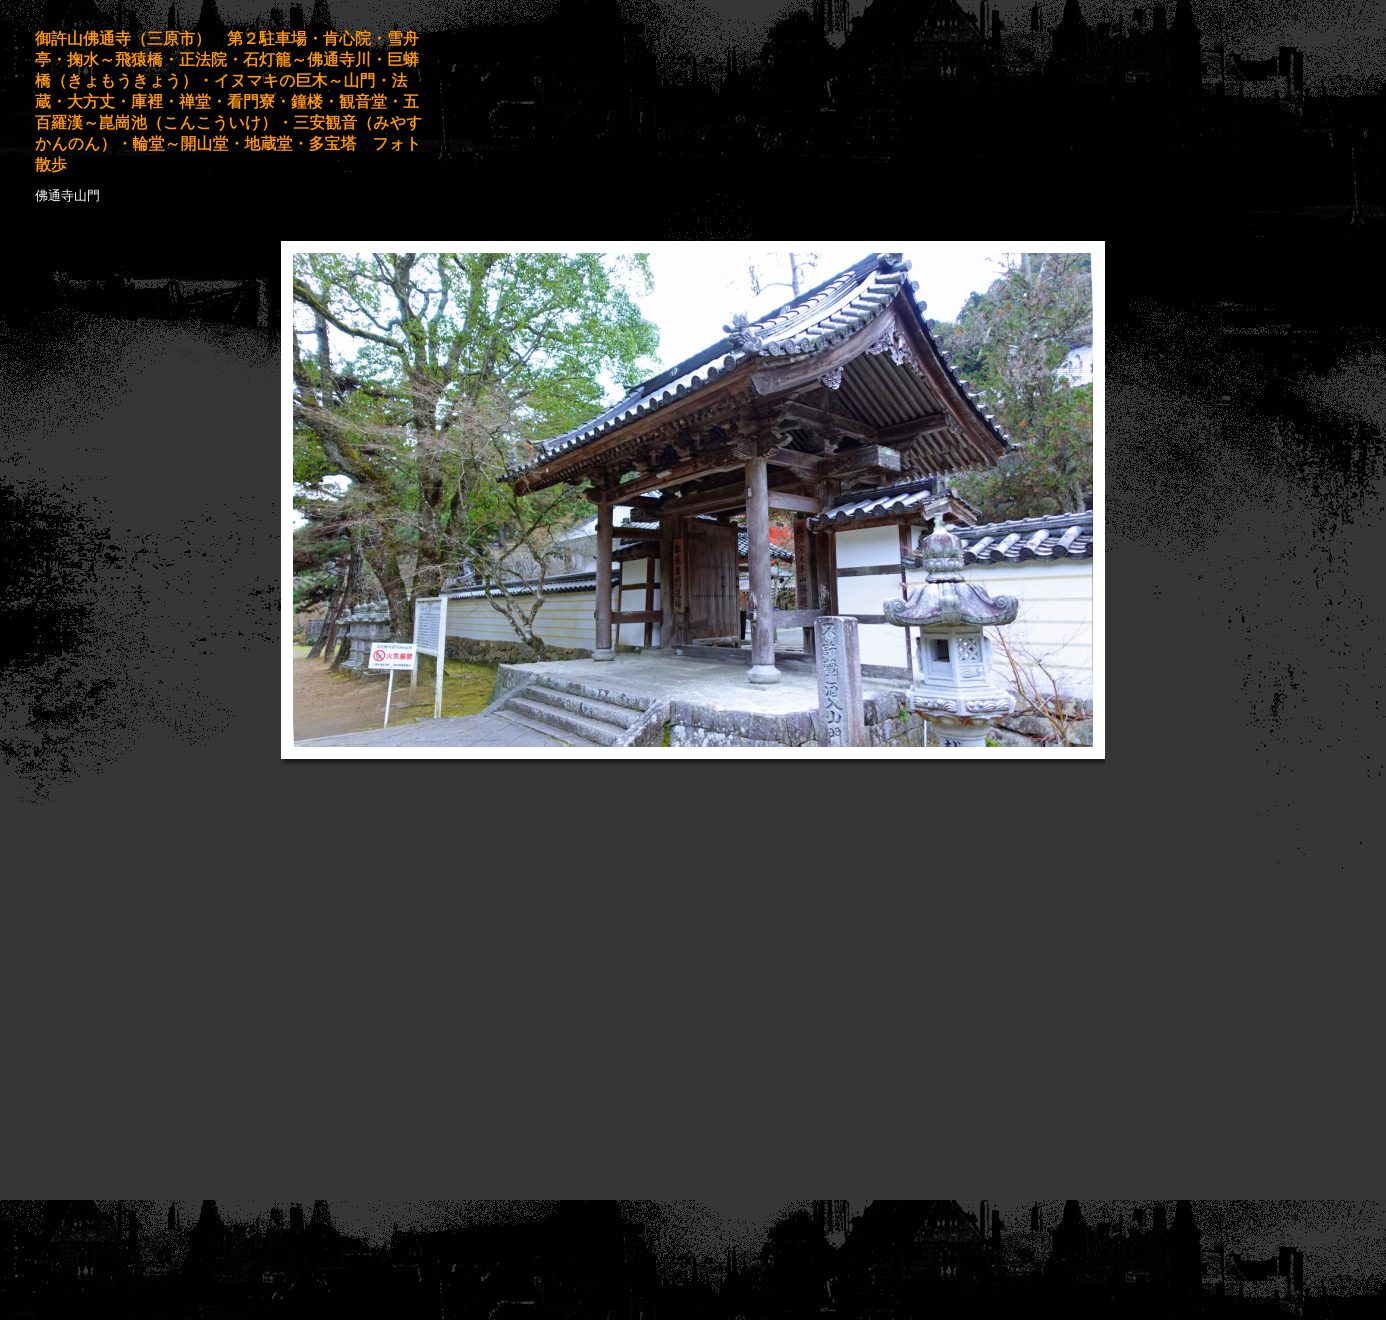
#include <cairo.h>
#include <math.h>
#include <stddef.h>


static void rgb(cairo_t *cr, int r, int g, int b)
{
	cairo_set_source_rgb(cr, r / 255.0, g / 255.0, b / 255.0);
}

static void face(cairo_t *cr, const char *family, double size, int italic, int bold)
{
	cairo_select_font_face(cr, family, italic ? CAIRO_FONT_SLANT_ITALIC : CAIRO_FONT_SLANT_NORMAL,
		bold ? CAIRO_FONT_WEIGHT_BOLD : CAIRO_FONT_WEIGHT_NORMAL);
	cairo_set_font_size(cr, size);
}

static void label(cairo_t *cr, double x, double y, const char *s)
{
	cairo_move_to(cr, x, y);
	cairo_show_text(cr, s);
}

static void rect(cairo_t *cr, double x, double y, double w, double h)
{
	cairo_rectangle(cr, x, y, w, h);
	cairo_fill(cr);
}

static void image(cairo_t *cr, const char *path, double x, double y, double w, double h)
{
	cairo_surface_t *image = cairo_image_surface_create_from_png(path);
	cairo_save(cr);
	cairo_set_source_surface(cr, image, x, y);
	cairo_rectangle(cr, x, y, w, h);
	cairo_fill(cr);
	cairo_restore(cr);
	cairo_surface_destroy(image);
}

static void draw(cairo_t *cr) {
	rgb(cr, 255, 255, 255);
	cairo_paint(cr);
	image(cr, "image0.png", 0, 0, 1386, 1320);
	face(cr, "WenQuanYi Zen Hei", 16, 0, 1);
	rgb(cr, 255, 153, 0);
	label(cr, 35, 44, "御許山佛通寺（三原市）　第２駐車場・肯心院・雪舟");
	label(cr, 35, 65, "亭・掬水～飛猿橋・正法院・石灯籠～佛通寺川・巨蟒");
	label(cr, 35, 86, "橋（きょもうきょう）・イヌマキの巨木～山門・法");
	label(cr, 35, 107, "蔵・大方丈・庫裡・禅堂・看門寮・鐘楼・観音堂・五");
	label(cr, 35, 128, "百羅漢～崑崗池（こんこういけ）・三安観音（みやす");
	label(cr, 35, 149, "かんのん）・輪堂～開山堂・地蔵堂・多宝塔　フォト");
	label(cr, 35, 170, "散歩");
	face(cr, "WenQuanYi Zen Hei Medium", 13, 0, 0);
	rgb(cr, 255, 255, 255);
	label(cr, 35, 200, "佛通寺山門");
	rect(cr, 281, 241, 12, 506);
	image(cr, "image1.png", 293, 253, 800, 494);
	rect(cr, 1093, 241, 12, 506);
	rect(cr, 293, 241, 800, 12);
	image(cr, "image2.png", 281, 747, 12, 18);
	image(cr, "image3.png", 293, 747, 800, 18);
	image(cr, "image4.png", 1093, 747, 12, 18);
}

int main(void) {
	cairo_surface_t *surface = cairo_image_surface_create(CAIRO_FORMAT_RGB24, 1386, 1320);
	cairo_t *cr = cairo_create(surface);
	cairo_font_options_t *options = cairo_font_options_create();
	cairo_font_options_set_hint_metrics(options, CAIRO_HINT_METRICS_OFF);
	cairo_font_options_set_hint_style(options, CAIRO_HINT_STYLE_NONE);
	cairo_set_font_options(cr, options);
	cairo_set_miter_limit(cr, 4);
	draw(cr);
	cairo_surface_write_to_png(surface, "render.png");
	cairo_font_options_destroy(options);
	cairo_destroy(cr);
	cairo_surface_destroy(surface);
	return 0;
}
